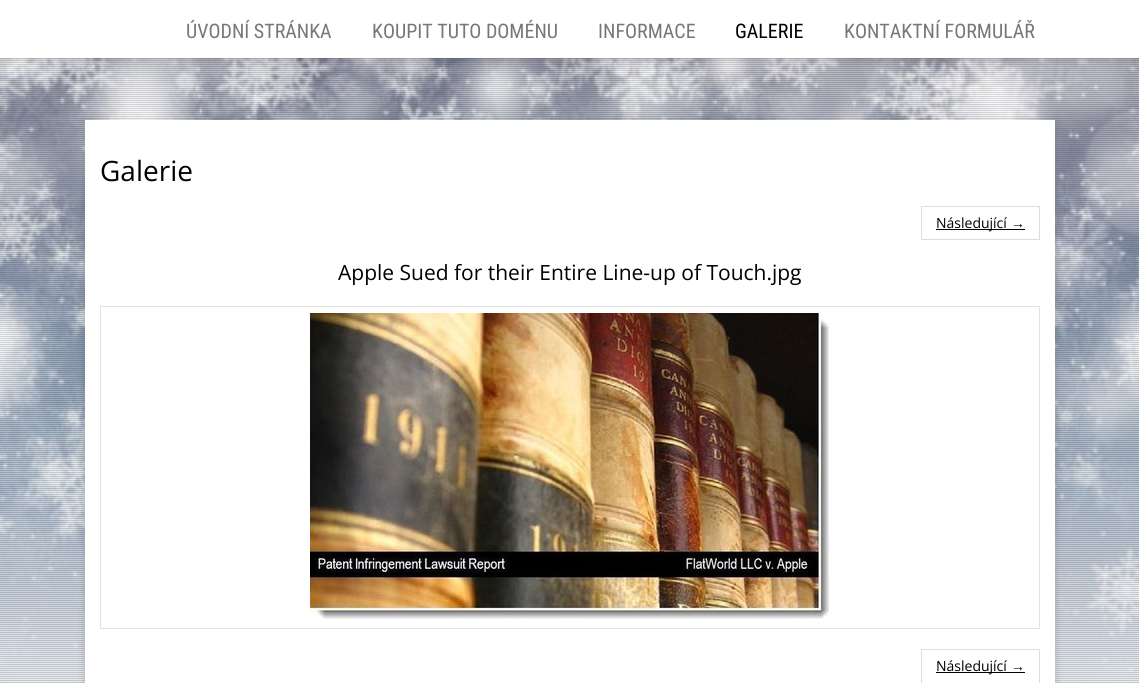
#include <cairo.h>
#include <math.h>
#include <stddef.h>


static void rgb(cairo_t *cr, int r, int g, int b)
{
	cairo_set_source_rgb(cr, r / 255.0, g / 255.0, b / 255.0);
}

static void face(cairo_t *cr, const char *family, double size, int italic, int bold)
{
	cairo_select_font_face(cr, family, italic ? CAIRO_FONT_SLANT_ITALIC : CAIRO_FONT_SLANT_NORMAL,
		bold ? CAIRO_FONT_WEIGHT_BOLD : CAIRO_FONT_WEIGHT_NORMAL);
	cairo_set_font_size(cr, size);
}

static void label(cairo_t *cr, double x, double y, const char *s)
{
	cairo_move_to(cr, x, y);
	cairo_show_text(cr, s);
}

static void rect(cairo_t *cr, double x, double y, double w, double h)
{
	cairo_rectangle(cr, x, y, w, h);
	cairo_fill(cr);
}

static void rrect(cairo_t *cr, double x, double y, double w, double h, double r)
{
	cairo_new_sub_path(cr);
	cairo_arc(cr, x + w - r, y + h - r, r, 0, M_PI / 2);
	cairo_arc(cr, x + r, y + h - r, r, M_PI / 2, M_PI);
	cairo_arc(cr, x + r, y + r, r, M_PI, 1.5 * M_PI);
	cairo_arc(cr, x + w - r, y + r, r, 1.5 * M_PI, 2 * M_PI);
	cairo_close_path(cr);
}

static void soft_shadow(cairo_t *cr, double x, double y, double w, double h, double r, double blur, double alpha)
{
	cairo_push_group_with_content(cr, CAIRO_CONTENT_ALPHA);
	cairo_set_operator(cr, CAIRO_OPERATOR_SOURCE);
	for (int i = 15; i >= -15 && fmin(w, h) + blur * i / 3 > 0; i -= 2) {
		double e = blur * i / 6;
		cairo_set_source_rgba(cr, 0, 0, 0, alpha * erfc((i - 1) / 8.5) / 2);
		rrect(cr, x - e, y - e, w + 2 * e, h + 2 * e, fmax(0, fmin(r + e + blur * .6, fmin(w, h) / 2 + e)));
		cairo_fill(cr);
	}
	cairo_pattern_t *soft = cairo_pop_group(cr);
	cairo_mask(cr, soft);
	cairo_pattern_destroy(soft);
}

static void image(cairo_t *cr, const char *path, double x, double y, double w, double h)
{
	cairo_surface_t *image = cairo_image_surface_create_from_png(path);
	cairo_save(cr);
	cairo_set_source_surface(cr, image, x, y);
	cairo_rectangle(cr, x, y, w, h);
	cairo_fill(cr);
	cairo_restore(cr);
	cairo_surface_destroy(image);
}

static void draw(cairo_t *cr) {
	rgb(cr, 255, 255, 255);
	cairo_paint(cr);
	image(cr, "image0.png", 0, 58, 1139, 625);
	image(cr, "image1.png", 0, 58, 1139, 625);
	rgb(cr, 0, 0, 0);
	soft_shadow(cr, 0, 0, 1139, 58, 0, 5, 0.2);
	rgb(cr, 255, 255, 255);
	rect(cr, 0, 0, 1139, 58);
	face(cr, "Roboto Condensed", 20, 0, 0);
	rgb(cr, 119, 119, 119);
	label(cr, 186, 38, "ÚVODNÍ STRÁNKA");
	label(cr, 372, 38, "KOUPIT TUTO DOMÉNU");
	label(cr, 598, 38, "INFORMACE");
	rgb(cr, 0, 0, 0);
	label(cr, 735, 38, "GALERIE");
	rgb(cr, 119, 119, 119);
	label(cr, 844, 38, "KONTAKTNÍ FORMULÁŘ");
	rgb(cr, 0, 0, 0);
	soft_shadow(cr, 82, 120, 976, 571, 0, 2.5, 0.1);
	rgb(cr, 255, 255, 255);
	rect(cr, 85, 120, 970, 563);
	face(cr, "Open Sans", 28, 0, 0);
	rgb(cr, 0, 0, 0);
	label(cr, 100, 181, "Galerie");
	cairo_rectangle(cr, 921.5, 206.5, 118, 33);
	rgb(cr, 221, 221, 221);
	cairo_set_line_width(cr, 1);
	cairo_stroke(cr);
	rgb(cr, 0, 0, 0);
	rect(cr, 936, 229, 89, 1);
	face(cr, "Open Sans", 14, 0, 0);
	label(cr, 936, 228, "Následující");
	face(cr, "Liberation Sans", 14, 0, 0);
	label(cr, 1011, 228, "→");
	face(cr, "Open Sans", 21, 0, 0);
	label(cr, 338, 280, "Apple Sued for their Entire Line-up of Touch.jpg");
	cairo_rectangle(cr, 100.5, 306.5, 939, 322);
	rgb(cr, 227, 227, 227);
	cairo_stroke(cr);
	image(cr, "image2.png", 310, 313, 519, 306);
	cairo_rectangle(cr, 921.5, 649.5, 118, 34);
	rgb(cr, 221, 221, 221);
	cairo_stroke(cr);
	rgb(cr, 0, 0, 0);
	rect(cr, 936, 672, 89, 1);
	face(cr, "Open Sans", 14, 0, 0);
	label(cr, 936, 671, "Následující");
	face(cr, "Liberation Sans", 14, 0, 0);
	label(cr, 1011, 671, "→");
}

int main(void) {
	cairo_surface_t *surface = cairo_image_surface_create(CAIRO_FORMAT_RGB24, 1139, 683);
	cairo_t *cr = cairo_create(surface);
	cairo_font_options_t *options = cairo_font_options_create();
	cairo_font_options_set_hint_metrics(options, CAIRO_HINT_METRICS_OFF);
	cairo_font_options_set_hint_style(options, CAIRO_HINT_STYLE_NONE);
	cairo_set_font_options(cr, options);
	cairo_set_miter_limit(cr, 4);
	draw(cr);
	cairo_surface_write_to_png(surface, "render.png");
	cairo_font_options_destroy(options);
	cairo_destroy(cr);
	cairo_surface_destroy(surface);
	return 0;
}
